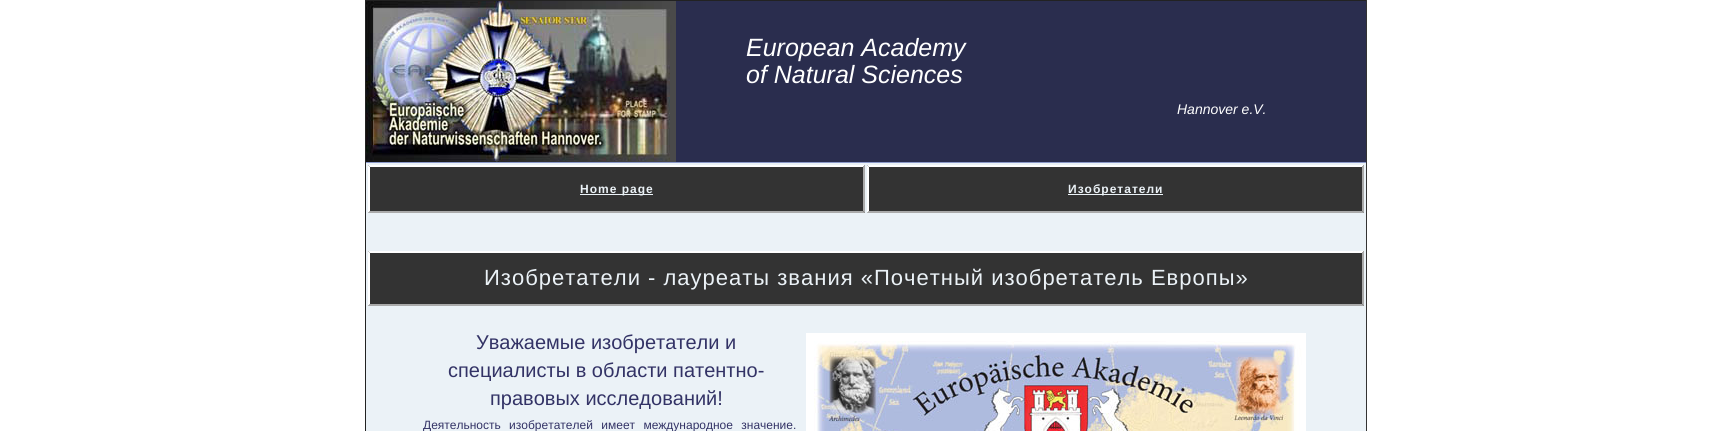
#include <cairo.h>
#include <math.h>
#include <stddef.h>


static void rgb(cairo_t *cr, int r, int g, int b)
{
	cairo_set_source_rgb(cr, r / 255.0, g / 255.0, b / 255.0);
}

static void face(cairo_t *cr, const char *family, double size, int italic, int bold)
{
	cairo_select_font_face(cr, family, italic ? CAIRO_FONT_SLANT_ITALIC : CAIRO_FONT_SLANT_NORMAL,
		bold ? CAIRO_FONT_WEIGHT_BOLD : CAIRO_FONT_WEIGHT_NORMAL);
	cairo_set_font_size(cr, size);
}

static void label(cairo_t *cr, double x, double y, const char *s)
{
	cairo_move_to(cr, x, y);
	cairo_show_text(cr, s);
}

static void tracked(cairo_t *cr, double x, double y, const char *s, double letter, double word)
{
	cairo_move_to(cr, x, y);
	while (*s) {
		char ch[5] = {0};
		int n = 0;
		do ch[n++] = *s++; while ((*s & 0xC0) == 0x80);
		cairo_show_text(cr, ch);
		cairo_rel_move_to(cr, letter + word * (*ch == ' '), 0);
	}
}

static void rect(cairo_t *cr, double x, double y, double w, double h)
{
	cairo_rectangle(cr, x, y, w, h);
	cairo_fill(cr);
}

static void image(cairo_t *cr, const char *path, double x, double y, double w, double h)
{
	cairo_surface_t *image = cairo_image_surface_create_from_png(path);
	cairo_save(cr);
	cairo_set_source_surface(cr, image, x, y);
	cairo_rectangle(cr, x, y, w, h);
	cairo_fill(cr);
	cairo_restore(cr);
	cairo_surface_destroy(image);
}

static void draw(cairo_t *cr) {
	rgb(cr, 255, 255, 255);
	cairo_paint(cr);
	rgb(cr, 235, 242, 247);
	rect(cr, 366, 163, 1000, 268);
	rgb(cr, 34, 34, 34);
	rect(cr, 365, 0, 1002, 1);
	rgb(cr, 51, 51, 51);
	rect(cr, 1366, 0, 1, 431);
	rgb(cr, 34, 34, 34);
	rect(cr, 365, 0, 1, 431);
	rgb(cr, 42, 45, 78);
	rect(cr, 676, 1, 690, 161);
	rgb(cr, 138, 152, 201);
	rect(cr, 366, 162, 1000, 1);
	image(cr, "image0.png", 366, 1, 310, 161);
	face(cr, "Liberation Sans", 25, 1, 0);
	rgb(cr, 255, 255, 255);
	label(cr, 746, 56, "European Academy");
	label(cr, 746, 83, "of Natural Sciences");
	face(cr, "Liberation Sans", 14, 1, 0);
	label(cr, 1177, 114, "Hannover e.V.");
	rgb(cr, 51, 51, 51);
	rect(cr, 368, 165, 497, 48);
	rgb(cr, 255, 255, 255);
	cairo_new_path(cr);
	cairo_move_to(cr, 368, 165);
	cairo_line_to(cr, 865, 165);
	cairo_line_to(cr, 863, 167);
	cairo_line_to(cr, 370, 167);
	cairo_close_path(cr);
	cairo_fill(cr);
	rgb(cr, 170, 170, 170);
	cairo_new_path(cr);
	cairo_move_to(cr, 865, 165);
	cairo_line_to(cr, 865, 213);
	cairo_line_to(cr, 863, 211);
	cairo_line_to(cr, 863, 167);
	cairo_close_path(cr);
	cairo_fill(cr);
	cairo_new_path(cr);
	cairo_move_to(cr, 865, 213);
	cairo_line_to(cr, 368, 213);
	cairo_line_to(cr, 370, 211);
	cairo_line_to(cr, 863, 211);
	cairo_close_path(cr);
	cairo_fill(cr);
	rgb(cr, 255, 255, 255);
	cairo_new_path(cr);
	cairo_move_to(cr, 368, 213);
	cairo_line_to(cr, 368, 165);
	cairo_line_to(cr, 370, 167);
	cairo_line_to(cr, 370, 211);
	cairo_close_path(cr);
	cairo_fill(cr);
	rgb(cr, 235, 242, 247);
	rect(cr, 580, 194, 73, 1);
	face(cr, "Liberation Sans", 12, 0, 1);
	tracked(cr, 580, 193, "Home page", 1, 0);
	rgb(cr, 51, 51, 51);
	rect(cr, 867, 165, 497, 48);
	rgb(cr, 255, 255, 255);
	cairo_new_path(cr);
	cairo_move_to(cr, 867, 165);
	cairo_line_to(cr, 1364, 165);
	cairo_line_to(cr, 1362, 167);
	cairo_line_to(cr, 869, 167);
	cairo_close_path(cr);
	cairo_fill(cr);
	rgb(cr, 170, 170, 170);
	cairo_new_path(cr);
	cairo_move_to(cr, 1364, 165);
	cairo_line_to(cr, 1364, 213);
	cairo_line_to(cr, 1362, 211);
	cairo_line_to(cr, 1362, 167);
	cairo_close_path(cr);
	cairo_fill(cr);
	cairo_new_path(cr);
	cairo_move_to(cr, 1364, 213);
	cairo_line_to(cr, 867, 213);
	cairo_line_to(cr, 869, 211);
	cairo_line_to(cr, 1362, 211);
	cairo_close_path(cr);
	cairo_fill(cr);
	rgb(cr, 255, 255, 255);
	cairo_new_path(cr);
	cairo_move_to(cr, 867, 213);
	cairo_line_to(cr, 867, 165);
	cairo_line_to(cr, 869, 167);
	cairo_line_to(cr, 869, 211);
	cairo_close_path(cr);
	cairo_fill(cr);
	rgb(cr, 235, 242, 247);
	rect(cr, 1068, 194, 95, 1);
	tracked(cr, 1068, 193, "Изобретатели", 1, 0);
	rgb(cr, 51, 51, 51);
	rect(cr, 368, 251, 996, 55);
	rgb(cr, 255, 255, 255);
	cairo_new_path(cr);
	cairo_move_to(cr, 368, 251);
	cairo_line_to(cr, 1364, 251);
	cairo_line_to(cr, 1362, 253);
	cairo_line_to(cr, 370, 253);
	cairo_close_path(cr);
	cairo_fill(cr);
	rgb(cr, 170, 170, 170);
	cairo_new_path(cr);
	cairo_move_to(cr, 1364, 251);
	cairo_line_to(cr, 1364, 306);
	cairo_line_to(cr, 1362, 304);
	cairo_line_to(cr, 1362, 253);
	cairo_close_path(cr);
	cairo_fill(cr);
	cairo_new_path(cr);
	cairo_move_to(cr, 1364, 306);
	cairo_line_to(cr, 368, 306);
	cairo_line_to(cr, 370, 304);
	cairo_line_to(cr, 1362, 304);
	cairo_close_path(cr);
	cairo_fill(cr);
	rgb(cr, 255, 255, 255);
	cairo_new_path(cr);
	cairo_move_to(cr, 368, 306);
	cairo_line_to(cr, 368, 251);
	cairo_line_to(cr, 370, 253);
	cairo_line_to(cr, 370, 304);
	cairo_close_path(cr);
	cairo_fill(cr);
	face(cr, "Liberation Sans", 22, 0, 0);
	rgb(cr, 235, 242, 247);
	tracked(cr, 484, 285, "Изобретатели - лауреаты звания «Почетный изобретатель Европы»", 1, 0);
	face(cr, "Liberation Sans", 20, 0, 0);
	rgb(cr, 51, 51, 102);
	label(cr, 476, 349, "Уважаемые изобретатели и");
	image(cr, "image1.png", 806, 333, 500, 98);
	label(cr, 448, 377, "специалисты в области патентно-");
	label(cr, 490, 405, "правовых исследований!");
	face(cr, "Liberation Sans", 12, 0, 0);
	tracked(cr, 423, 429, "Деятельность изобретателей имеет международное значение.", 0, 5);
}

int main(void) {
	cairo_surface_t *surface = cairo_image_surface_create(CAIRO_FORMAT_RGB24, 1732, 431);
	cairo_t *cr = cairo_create(surface);
	cairo_font_options_t *options = cairo_font_options_create();
	cairo_font_options_set_hint_metrics(options, CAIRO_HINT_METRICS_OFF);
	cairo_font_options_set_hint_style(options, CAIRO_HINT_STYLE_NONE);
	cairo_set_font_options(cr, options);
	cairo_set_miter_limit(cr, 4);
	draw(cr);
	cairo_surface_write_to_png(surface, "render.png");
	cairo_font_options_destroy(options);
	cairo_destroy(cr);
	cairo_surface_destroy(surface);
	return 0;
}
